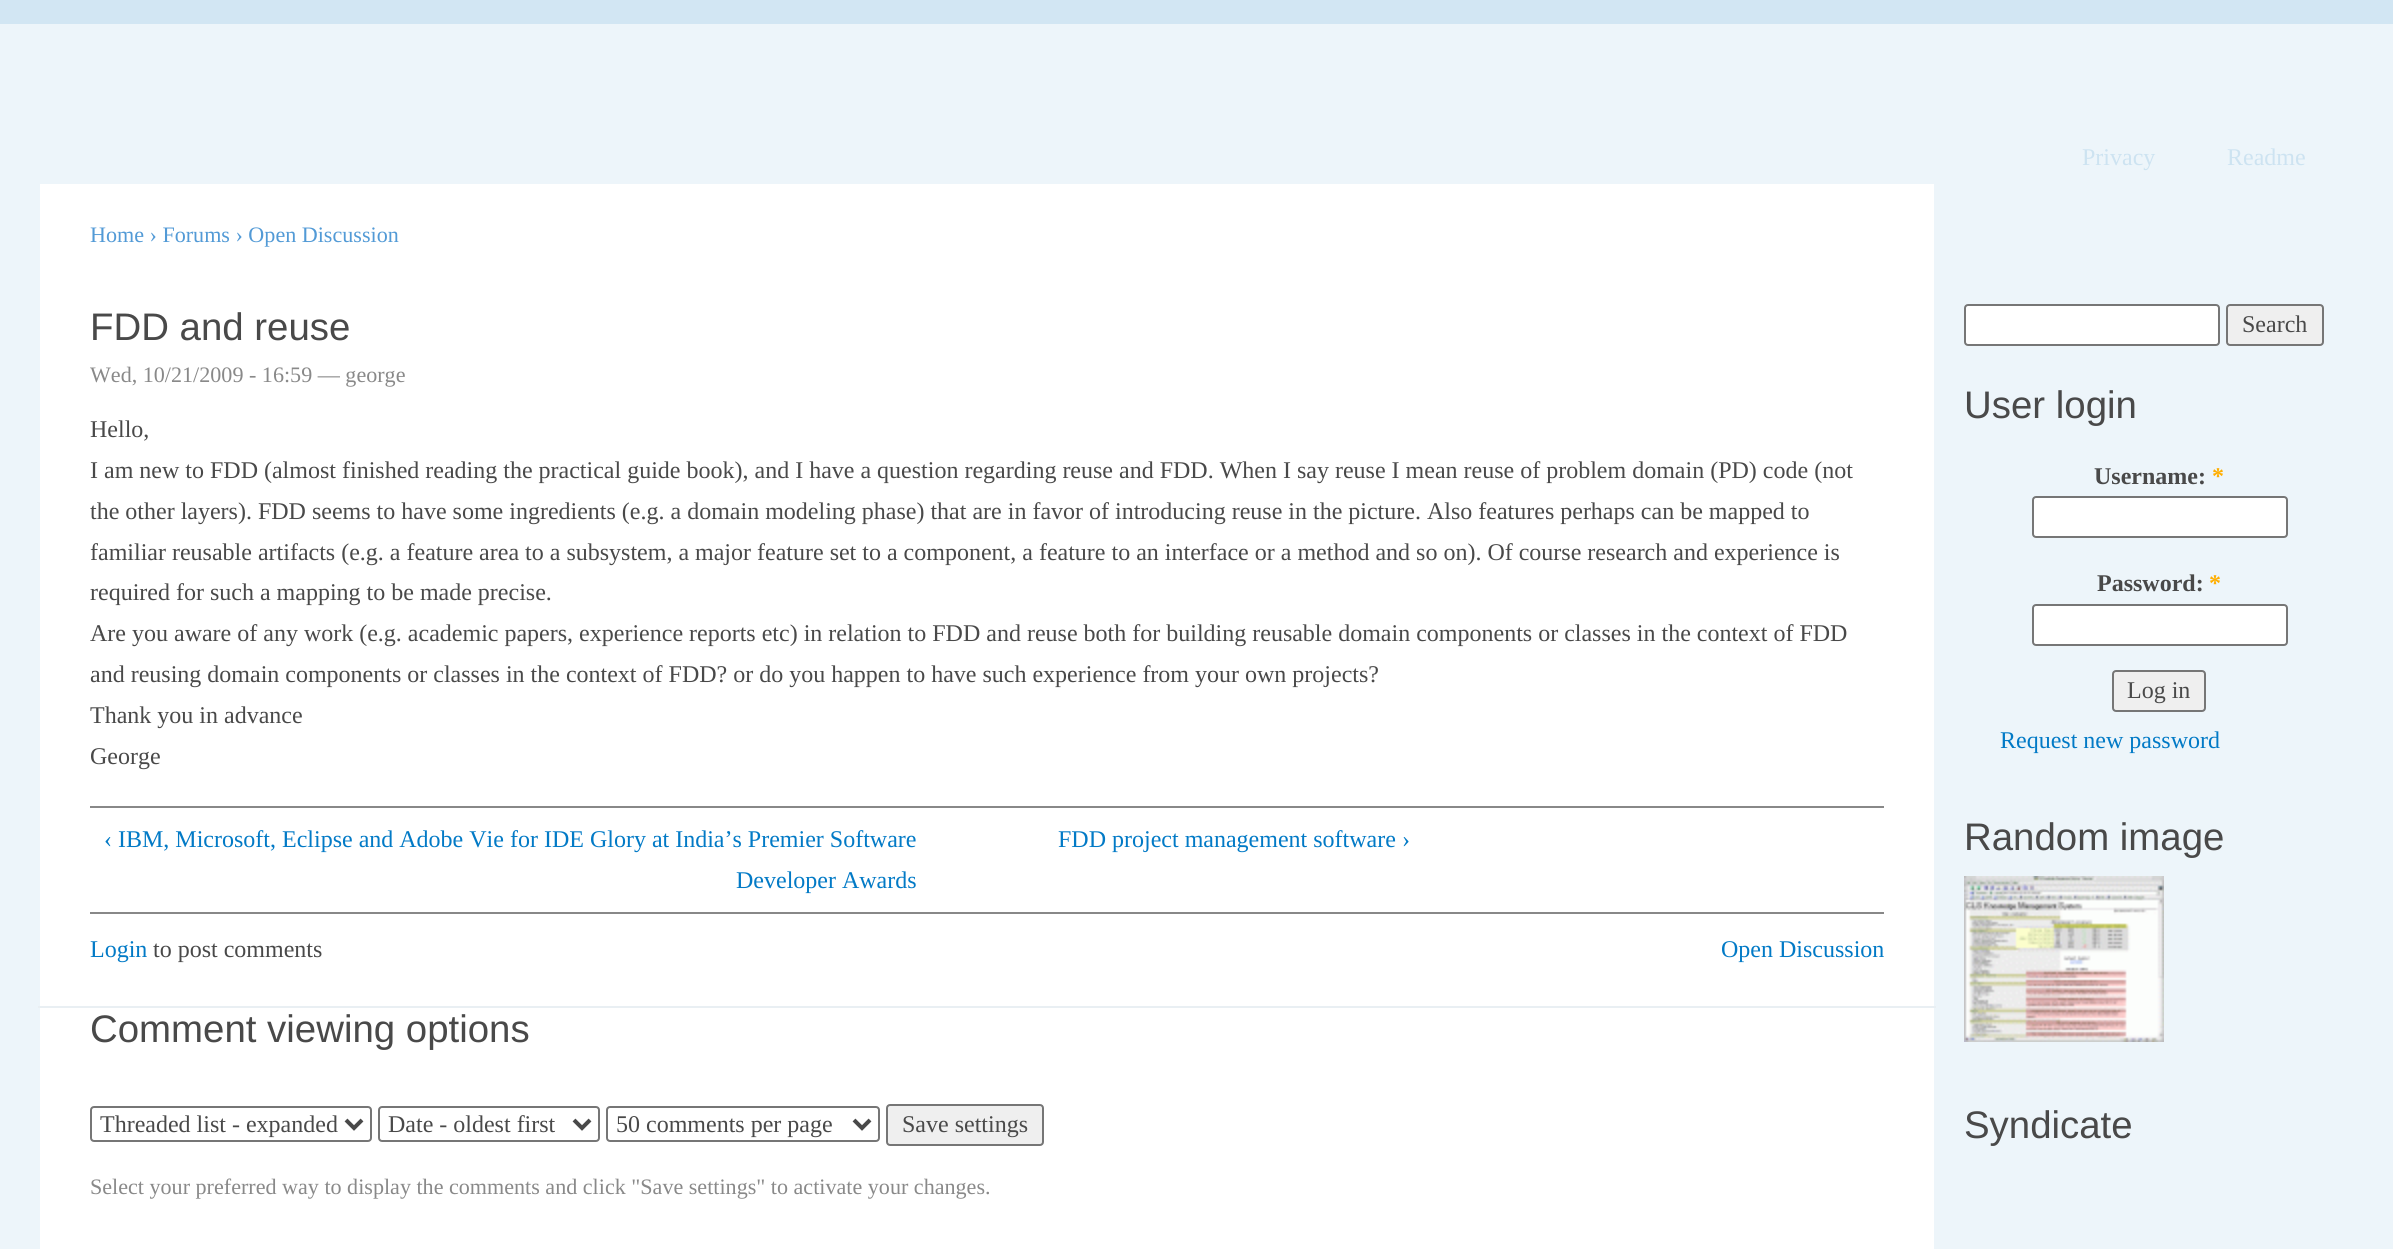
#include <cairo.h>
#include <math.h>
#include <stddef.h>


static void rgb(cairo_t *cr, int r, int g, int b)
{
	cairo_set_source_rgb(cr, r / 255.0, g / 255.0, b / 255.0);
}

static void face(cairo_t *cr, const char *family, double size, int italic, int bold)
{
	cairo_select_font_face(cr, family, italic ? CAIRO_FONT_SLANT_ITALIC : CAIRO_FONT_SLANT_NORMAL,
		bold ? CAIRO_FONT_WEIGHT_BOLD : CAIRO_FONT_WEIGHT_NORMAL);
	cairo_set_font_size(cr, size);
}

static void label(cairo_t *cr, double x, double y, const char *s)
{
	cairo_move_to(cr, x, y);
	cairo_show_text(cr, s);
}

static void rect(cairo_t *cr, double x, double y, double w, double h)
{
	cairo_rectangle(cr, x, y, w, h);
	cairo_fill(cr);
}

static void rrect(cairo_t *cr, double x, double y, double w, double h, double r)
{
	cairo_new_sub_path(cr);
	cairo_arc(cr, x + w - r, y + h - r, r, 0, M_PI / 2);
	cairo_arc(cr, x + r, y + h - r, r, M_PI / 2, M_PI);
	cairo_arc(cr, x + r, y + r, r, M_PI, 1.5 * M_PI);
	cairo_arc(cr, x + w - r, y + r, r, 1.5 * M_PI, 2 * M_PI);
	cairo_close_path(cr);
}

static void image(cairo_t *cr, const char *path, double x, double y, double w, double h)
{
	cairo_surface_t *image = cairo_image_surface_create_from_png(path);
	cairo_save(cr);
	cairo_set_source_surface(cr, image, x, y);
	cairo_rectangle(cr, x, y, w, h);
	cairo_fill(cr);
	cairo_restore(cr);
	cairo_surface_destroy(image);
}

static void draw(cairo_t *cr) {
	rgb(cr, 237, 245, 250);
	cairo_paint(cr);
	rgb(cr, 210, 230, 243);
	rect(cr, 0, 0, 2393, 24);
	face(cr, "Liberation Serif", 24, 0, 0);
	rgb(cr, 205, 227, 241);
	label(cr, 2082, 165, "Privacy");
	label(cr, 2227, 165, "Readme");
	rgb(cr, 255, 255, 255);
	rect(cr, 40, 184, 1894, 1065);
	face(cr, "Liberation Serif", 22.1, 0, 0);
	rgb(cr, 82, 154, 214);
	label(cr, 90, 242, "Home › Forums › Open Discussion");
	face(cr, "Liberation Sans", 38.4, 0, 0);
	rgb(cr, 73, 73, 73);
	label(cr, 90, 340, "FDD and reuse");
	rgb(cr, 233, 239, 243);
	rect(cr, 38, 1006, 1898, 2);
	face(cr, "Liberation Serif", 22.1, 0, 0);
	rgb(cr, 137, 137, 137);
	label(cr, 90, 382, "Wed, 10/21/2009 - 16:59 — george");
	face(cr, "Liberation Serif", 24, 0, 0);
	rgb(cr, 73, 73, 73);
	label(cr, 90, 437, "Hello,");
	label(cr, 90, 478, "I am new to FDD (almost finished reading the practical guide book), and I have a question regarding reuse and FDD. When I say reuse I mean reuse of problem domain (PD) code (not");
	label(cr, 90, 519, "the other layers). FDD seems to have some ingredients (e.g. a domain modeling phase) that are in favor of introducing reuse in the picture. Also features perhaps can be mapped to");
	label(cr, 90, 560, "familiar reusable artifacts (e.g. a feature area to a subsystem, a major feature set to a component, a feature to an interface or a method and so on). Of course research and experience is");
	label(cr, 90, 600, "required for such a mapping to be made precise.");
	label(cr, 90, 641, "Are you aware of any work (e.g. academic papers, experience reports etc) in relation to FDD and reuse both for building reusable domain components or classes in the context of FDD");
	label(cr, 90, 682, "and reusing domain components or classes in the context of FDD? or do you happen to have such experience from your own projects?");
	label(cr, 90, 723, "Thank you in advance");
	label(cr, 90, 764, "George");
	rgb(cr, 136, 136, 136);
	rect(cr, 90, 806, 1794, 2);
	rect(cr, 90, 912, 1794, 2);
	rgb(cr, 2, 122, 198);
	label(cr, 104, 847, "‹ IBM, Microsoft, Eclipse and Adobe Vie for IDE Glory at India’s Premier Software");
	label(cr, 736, 888, "Developer Awards");
	label(cr, 1058, 847, "FDD project management software ›");
	label(cr, 90, 957, "Login");
	rgb(cr, 73, 73, 73);
	label(cr, 153, 957, "to post comments");
	rgb(cr, 2, 122, 198);
	label(cr, 1721, 957, "Open Discussion");
	face(cr, "Liberation Sans", 38.4, 0, 0);
	rgb(cr, 73, 73, 73);
	label(cr, 90, 1042, "Comment viewing options");
	rrect(cr, 91, 1107, 280, 34, 3);
	rgb(cr, 118, 118, 118);
	cairo_stroke(cr);
	cairo_new_path(cr);
	cairo_move_to(cr, 346, 1120);
	cairo_line_to(cr, 354, 1128);
	cairo_line_to(cr, 362, 1120);
	rgb(cr, 73, 73, 73);
	cairo_set_line_width(cr, 4);
	cairo_stroke(cr);
	face(cr, "Liberation Serif", 24, 0, 0);
	label(cr, 100, 1132, "Threaded list - expanded");
	rrect(cr, 379, 1107, 220, 34, 3);
	rgb(cr, 118, 118, 118);
	cairo_set_line_width(cr, 2);
	cairo_stroke(cr);
	cairo_new_path(cr);
	cairo_move_to(cr, 574, 1120);
	cairo_line_to(cr, 582, 1128);
	cairo_line_to(cr, 590, 1120);
	rgb(cr, 73, 73, 73);
	cairo_set_line_width(cr, 4);
	cairo_stroke(cr);
	label(cr, 388, 1132, "Date - oldest first");
	rrect(cr, 607, 1107, 272, 34, 3);
	rgb(cr, 118, 118, 118);
	cairo_set_line_width(cr, 2);
	cairo_stroke(cr);
	cairo_new_path(cr);
	cairo_move_to(cr, 854, 1120);
	cairo_line_to(cr, 862, 1128);
	cairo_line_to(cr, 870, 1120);
	rgb(cr, 73, 73, 73);
	cairo_set_line_width(cr, 4);
	cairo_stroke(cr);
	label(cr, 616, 1132, "50 comments per page");
	rgb(cr, 239, 239, 239);
	rrect(cr, 887, 1105, 156, 40, 3);
	cairo_fill_preserve(cr);
	rgb(cr, 118, 118, 118);
	cairo_set_line_width(cr, 2);
	cairo_stroke(cr);
	rgb(cr, 73, 73, 73);
	label(cr, 902, 1132, "Save settings");
	face(cr, "Liberation Serif", 22.1, 0, 0);
	rgb(cr, 137, 137, 137);
	label(cr, 90, 1194, "Select your preferred way to display the comments and click \"Save settings\" to activate your changes.");
	rgb(cr, 255, 255, 255);
	rrect(cr, 1965, 305, 254, 40, 3);
	cairo_fill_preserve(cr);
	rgb(cr, 118, 118, 118);
	cairo_stroke(cr);
	rgb(cr, 239, 239, 239);
	rrect(cr, 2227, 305, 96, 40, 3);
	cairo_fill_preserve(cr);
	rgb(cr, 118, 118, 118);
	cairo_stroke(cr);
	face(cr, "Liberation Serif", 24, 0, 0);
	rgb(cr, 73, 73, 73);
	label(cr, 2242, 332, "Search");
	face(cr, "Liberation Sans", 38.4, 0, 0);
	label(cr, 1964, 418, "User login");
	face(cr, "Liberation Serif", 24, 0, 1);
	label(cr, 2094, 484, "Username:");
	rgb(cr, 255, 174, 0);
	label(cr, 2212, 484, "*");
	rgb(cr, 255, 255, 255);
	rrect(cr, 2033, 497, 254, 40, 3);
	cairo_fill_preserve(cr);
	rgb(cr, 118, 118, 118);
	cairo_stroke(cr);
	rgb(cr, 73, 73, 73);
	label(cr, 2097, 591, "Password:");
	rgb(cr, 255, 174, 0);
	label(cr, 2209, 591, "*");
	rgb(cr, 255, 255, 255);
	rrect(cr, 2033, 605, 254, 40, 3);
	cairo_fill_preserve(cr);
	rgb(cr, 118, 118, 118);
	cairo_stroke(cr);
	rgb(cr, 239, 239, 239);
	rrect(cr, 2113, 671, 92, 40, 3);
	cairo_fill_preserve(cr);
	rgb(cr, 118, 118, 118);
	cairo_stroke(cr);
	face(cr, "Liberation Serif", 24, 0, 0);
	rgb(cr, 73, 73, 73);
	label(cr, 2127, 698, "Log in");
	rgb(cr, 2, 122, 198);
	label(cr, 2000, 748, "Request new password");
	face(cr, "Liberation Sans", 38.4, 0, 0);
	rgb(cr, 73, 73, 73);
	label(cr, 1964, 850, "Random image");
	image(cr, "image0.png", 1964, 876, 200, 166);
	label(cr, 1964, 1138, "Syndicate");
}

int main(void) {
	cairo_surface_t *surface = cairo_image_surface_create(CAIRO_FORMAT_RGB24, 2393, 1249);
	cairo_t *cr = cairo_create(surface);
	cairo_font_options_t *options = cairo_font_options_create();
	cairo_font_options_set_hint_metrics(options, CAIRO_HINT_METRICS_OFF);
	cairo_font_options_set_hint_style(options, CAIRO_HINT_STYLE_NONE);
	cairo_set_font_options(cr, options);
	cairo_set_miter_limit(cr, 4);
	draw(cr);
	cairo_surface_write_to_png(surface, "render.png");
	cairo_font_options_destroy(options);
	cairo_destroy(cr);
	cairo_surface_destroy(surface);
	return 0;
}
